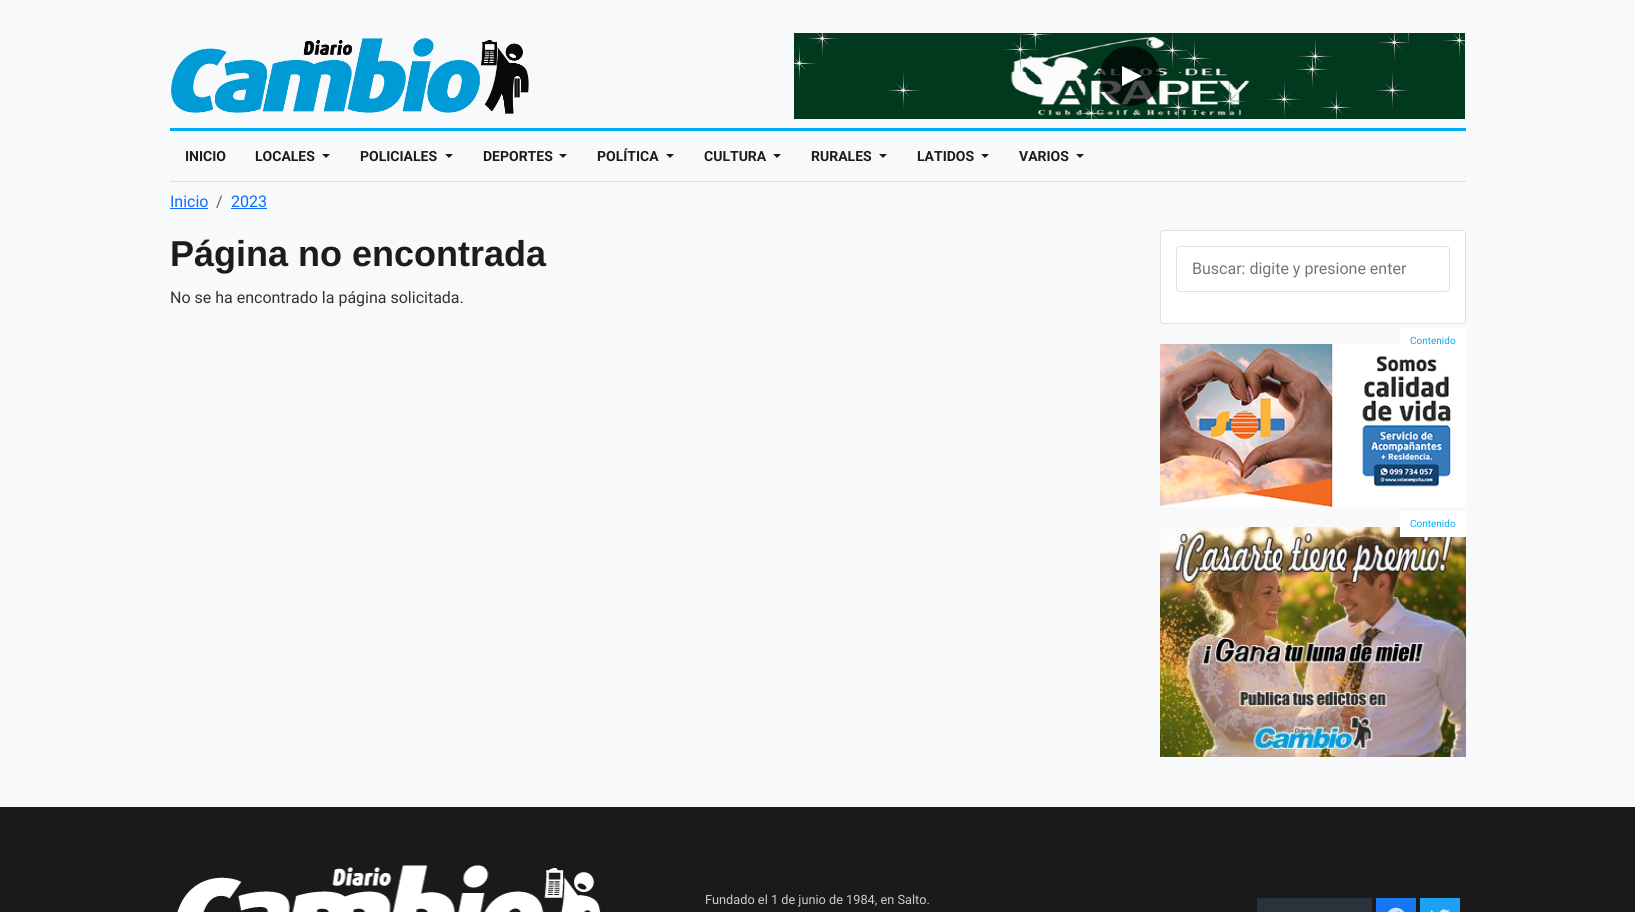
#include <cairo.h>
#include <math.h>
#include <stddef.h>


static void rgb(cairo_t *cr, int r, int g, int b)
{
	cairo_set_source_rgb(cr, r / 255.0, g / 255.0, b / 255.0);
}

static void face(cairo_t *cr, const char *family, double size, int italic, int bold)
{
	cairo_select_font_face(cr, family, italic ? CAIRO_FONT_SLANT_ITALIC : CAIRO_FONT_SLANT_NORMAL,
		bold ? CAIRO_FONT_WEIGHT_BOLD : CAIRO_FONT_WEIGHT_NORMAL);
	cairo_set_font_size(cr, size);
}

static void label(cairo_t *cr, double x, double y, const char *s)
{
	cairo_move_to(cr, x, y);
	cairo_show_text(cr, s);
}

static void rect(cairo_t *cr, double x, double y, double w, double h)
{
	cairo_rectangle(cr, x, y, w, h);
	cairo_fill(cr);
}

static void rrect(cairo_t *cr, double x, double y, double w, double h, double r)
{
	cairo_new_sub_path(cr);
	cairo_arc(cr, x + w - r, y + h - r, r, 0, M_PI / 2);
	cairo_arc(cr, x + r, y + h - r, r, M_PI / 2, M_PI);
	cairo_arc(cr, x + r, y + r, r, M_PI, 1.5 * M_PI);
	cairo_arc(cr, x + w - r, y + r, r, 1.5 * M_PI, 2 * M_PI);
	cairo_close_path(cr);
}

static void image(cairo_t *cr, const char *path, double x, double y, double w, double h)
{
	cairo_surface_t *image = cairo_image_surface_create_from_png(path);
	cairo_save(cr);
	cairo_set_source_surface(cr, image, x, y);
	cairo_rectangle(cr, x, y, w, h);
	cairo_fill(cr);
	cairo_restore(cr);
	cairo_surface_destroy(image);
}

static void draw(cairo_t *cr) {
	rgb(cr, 248, 249, 250);
	cairo_paint(cr);
	image(cr, "image0.png", 171, 38, 358, 76);
	image(cr, "image1.png", 794, 33, 671, 86);
	cairo_set_source_rgba(cr, 0, 0, 0, 0.7);
	cairo_arc(cr, 1130, 76, 30, 0, 2 * M_PI);
	cairo_fill(cr);
	rgb(cr, 255, 255, 255);
	cairo_new_path(cr);
	cairo_move_to(cr, 1122, 86);
	cairo_line_to(cr, 1122, 66);
	cairo_line_to(cr, 1142, 76);
	cairo_close_path(cr);
	cairo_fill(cr);
	rgb(cr, 0, 172, 240);
	rect(cr, 170, 128, 1296, 3);
	rgb(cr, 222, 222, 222);
	rect(cr, 170, 181, 1296, 1);
	face(cr, "Roboto", 14, 0, 1);
	rgb(cr, 28, 28, 28);
	label(cr, 185, 161, "INICIO");
	label(cr, 255, 161, "LOCALES");
	cairo_new_path(cr);
	cairo_move_to(cr, 322, 154);
	cairo_line_to(cr, 330, 154);
	cairo_line_to(cr, 326, 158);
	cairo_close_path(cr);
	cairo_fill(cr);
	label(cr, 360, 161, "POLICIALES");
	cairo_new_path(cr);
	cairo_move_to(cr, 445, 154);
	cairo_line_to(cr, 453, 154);
	cairo_line_to(cr, 449, 158);
	cairo_close_path(cr);
	cairo_fill(cr);
	label(cr, 483, 161, "DEPORTES");
	cairo_new_path(cr);
	cairo_move_to(cr, 559, 154);
	cairo_line_to(cr, 567, 154);
	cairo_line_to(cr, 563, 158);
	cairo_close_path(cr);
	cairo_fill(cr);
	label(cr, 597, 161, "POLÍTICA");
	cairo_new_path(cr);
	cairo_move_to(cr, 666, 154);
	cairo_line_to(cr, 674, 154);
	cairo_line_to(cr, 670, 158);
	cairo_close_path(cr);
	cairo_fill(cr);
	label(cr, 704, 161, "CULTURA");
	cairo_new_path(cr);
	cairo_move_to(cr, 773, 154);
	cairo_line_to(cr, 781, 154);
	cairo_line_to(cr, 777, 158);
	cairo_close_path(cr);
	cairo_fill(cr);
	label(cr, 811, 161, "RURALES");
	cairo_new_path(cr);
	cairo_move_to(cr, 879, 154);
	cairo_line_to(cr, 887, 154);
	cairo_line_to(cr, 883, 158);
	cairo_close_path(cr);
	cairo_fill(cr);
	label(cr, 917, 161, "LATIDOS");
	cairo_new_path(cr);
	cairo_move_to(cr, 981, 154);
	cairo_line_to(cr, 989, 154);
	cairo_line_to(cr, 985, 158);
	cairo_close_path(cr);
	cairo_fill(cr);
	label(cr, 1019, 161, "VARIOS");
	cairo_new_path(cr);
	cairo_move_to(cr, 1076, 154);
	cairo_line_to(cr, 1084, 154);
	cairo_line_to(cr, 1080, 158);
	cairo_close_path(cr);
	cairo_fill(cr);
	face(cr, "Roboto", 16, 0, 0);
	rgb(cr, 13, 110, 253);
	label(cr, 170, 207, "Inicio");
	rect(cr, 170, 208, 38, 1);
	rgb(cr, 87, 90, 93);
	label(cr, 216, 207, "/");
	rgb(cr, 13, 110, 253);
	label(cr, 231, 207, "2023");
	rect(cr, 231, 208, 36, 1);
	face(cr, "Arimo", 36, 0, 1);
	rgb(cr, 28, 28, 28);
	label(cr, 170, 266, "Página no encontrada");
	face(cr, "Roboto", 16, 0, 0);
	rgb(cr, 51, 51, 51);
	label(cr, 170, 303, "No se ha encontrado la página solicitada.");
	rgb(cr, 255, 255, 255);
	rrect(cr, 1160.5, 230.5, 305, 93, 3.5);
	cairo_fill_preserve(cr);
	rgb(cr, 224, 224, 224);
	cairo_set_line_width(cr, 1);
	cairo_stroke(cr);
	rrect(cr, 1176.5, 246.5, 273, 45, 3.5);
	cairo_stroke(cr);
	rgb(cr, 117, 117, 117);
	label(cr, 1192, 274, "Buscar: digite y presione enter");
	rgb(cr, 255, 255, 255);
	rect(cr, 1400, 328, 66, 16);
	image(cr, "image2.png", 1160, 344, 306, 163);
	face(cr, "Roboto", 10, 0, 0);
	rgb(cr, 0, 172, 240);
	label(cr, 1410, 344, "Contenido");
	image(cr, "image3.png", 1160, 527, 306, 230);
	rgb(cr, 255, 255, 255);
	rect(cr, 1400, 511, 66, 26);
	rgb(cr, 0, 172, 240);
	label(cr, 1410, 527, "Contenido");
	rgb(cr, 26, 26, 26);
	rect(cr, 0, 807, 1635, 105);
	image(cr, "image4.png", 177, 865, 424, 47);
	face(cr, "Roboto", 12.75, 0, 0);
	rgb(cr, 204, 204, 204);
	label(cr, 705, 904, "Fundado el 1 de junio de 1984, en Salto.");
	rgb(cr, 42, 50, 60);
	rect(cr, 1257, 898, 115, 14);
	rgb(cr, 24, 119, 242);
	rect(cr, 1376, 898, 40, 14);
	image(cr, "image5.png", 1388, 907, 16, 5);
	rgb(cr, 29, 161, 242);
	rect(cr, 1420, 898, 40, 14);
	image(cr, "image6.png", 1430, 909, 20, 3);
}

int main(void) {
	cairo_surface_t *surface = cairo_image_surface_create(CAIRO_FORMAT_RGB24, 1635, 912);
	cairo_t *cr = cairo_create(surface);
	cairo_font_options_t *options = cairo_font_options_create();
	cairo_font_options_set_hint_metrics(options, CAIRO_HINT_METRICS_OFF);
	cairo_font_options_set_hint_style(options, CAIRO_HINT_STYLE_NONE);
	cairo_set_font_options(cr, options);
	cairo_set_miter_limit(cr, 4);
	draw(cr);
	cairo_surface_write_to_png(surface, "render.png");
	cairo_font_options_destroy(options);
	cairo_destroy(cr);
	cairo_surface_destroy(surface);
	return 0;
}
